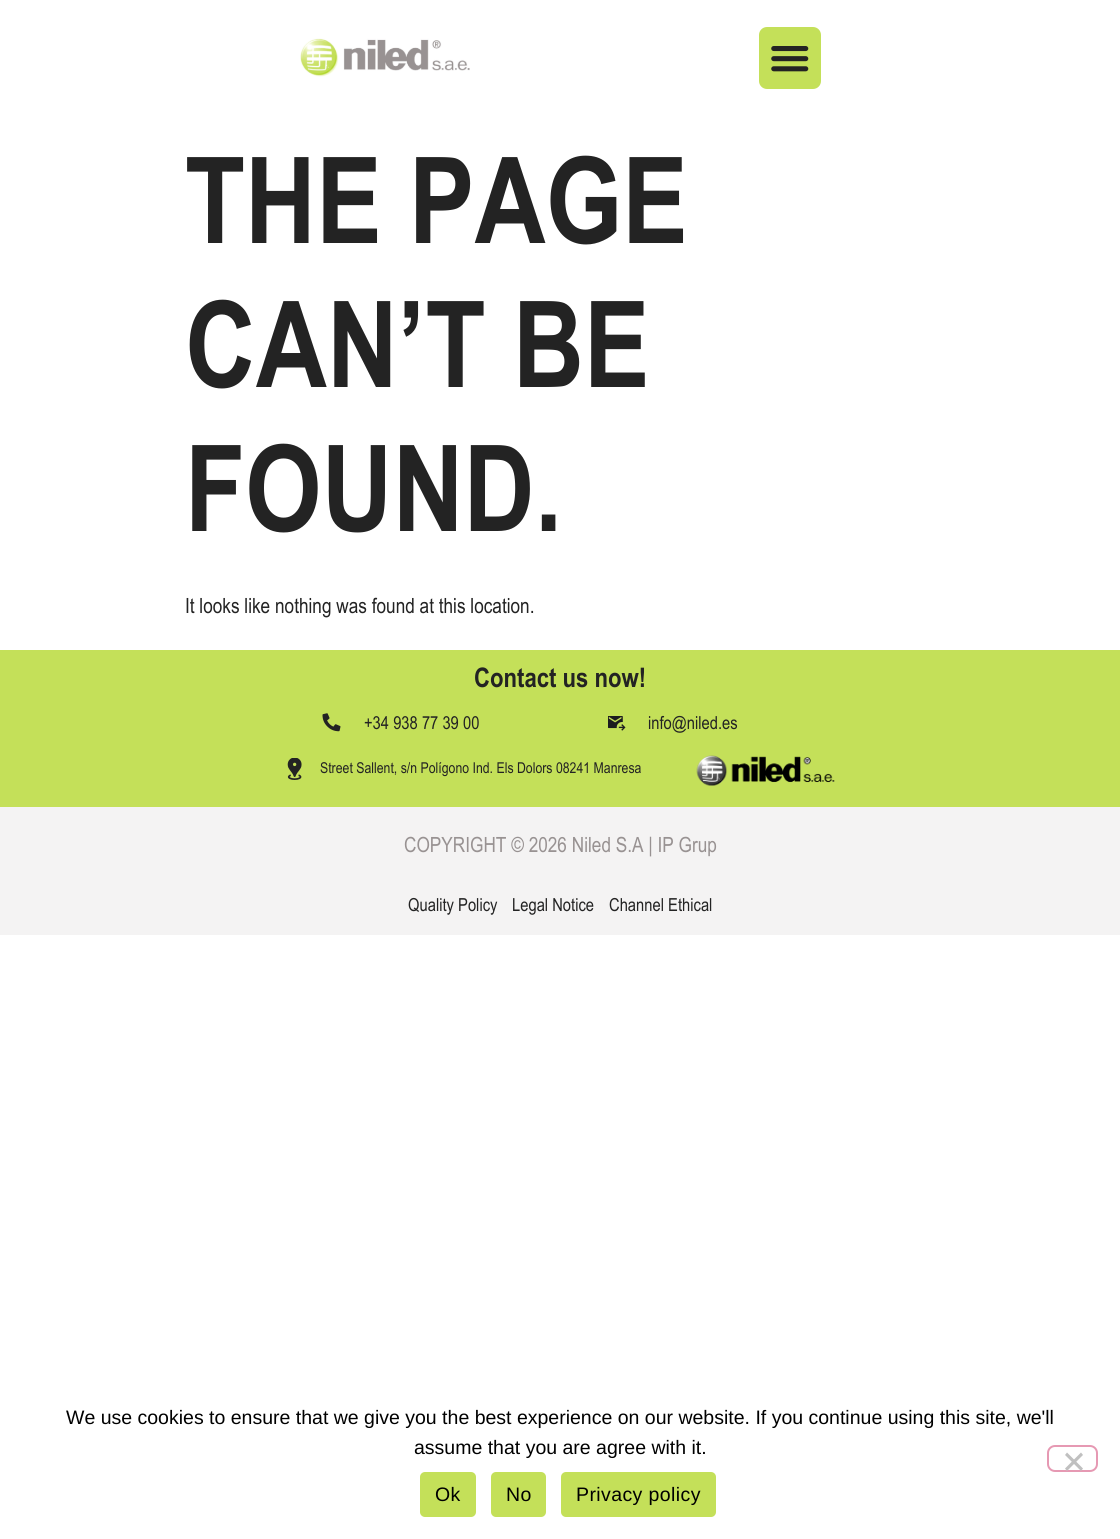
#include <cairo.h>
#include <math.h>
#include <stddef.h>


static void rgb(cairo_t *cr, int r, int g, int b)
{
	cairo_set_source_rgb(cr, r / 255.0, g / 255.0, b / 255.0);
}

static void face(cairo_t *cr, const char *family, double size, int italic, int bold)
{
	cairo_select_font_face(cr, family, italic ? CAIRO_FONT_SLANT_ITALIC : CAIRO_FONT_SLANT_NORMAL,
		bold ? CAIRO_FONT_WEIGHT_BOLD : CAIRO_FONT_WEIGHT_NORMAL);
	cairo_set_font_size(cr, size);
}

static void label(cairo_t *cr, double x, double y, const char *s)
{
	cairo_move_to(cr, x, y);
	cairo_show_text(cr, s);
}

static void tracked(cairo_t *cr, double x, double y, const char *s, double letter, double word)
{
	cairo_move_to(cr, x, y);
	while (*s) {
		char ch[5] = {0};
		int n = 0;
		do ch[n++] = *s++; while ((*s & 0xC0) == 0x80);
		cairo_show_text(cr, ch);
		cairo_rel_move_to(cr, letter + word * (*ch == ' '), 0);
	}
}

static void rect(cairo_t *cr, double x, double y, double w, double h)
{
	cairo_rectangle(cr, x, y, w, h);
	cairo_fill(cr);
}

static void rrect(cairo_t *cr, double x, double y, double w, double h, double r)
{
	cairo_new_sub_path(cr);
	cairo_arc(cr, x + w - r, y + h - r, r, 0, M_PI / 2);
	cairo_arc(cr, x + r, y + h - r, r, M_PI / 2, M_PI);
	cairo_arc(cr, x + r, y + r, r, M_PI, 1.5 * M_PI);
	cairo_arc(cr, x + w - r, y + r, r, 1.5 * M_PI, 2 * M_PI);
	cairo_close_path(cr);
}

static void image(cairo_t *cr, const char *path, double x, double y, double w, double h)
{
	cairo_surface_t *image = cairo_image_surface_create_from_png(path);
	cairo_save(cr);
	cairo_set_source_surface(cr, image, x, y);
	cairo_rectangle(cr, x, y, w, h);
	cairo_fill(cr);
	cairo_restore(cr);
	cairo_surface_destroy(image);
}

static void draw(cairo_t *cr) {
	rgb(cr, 255, 255, 255);
	cairo_paint(cr);
	image(cr, "image0.png", 300, 38, 170, 39);
	rgb(cr, 196, 224, 89);
	rrect(cr, 759, 27, 62, 62, 8);
	cairo_fill(cr);
	image(cr, "image1.png", 771, 46, 38, 26);
	face(cr, "Arial", 120, 0, 1);
	rgb(cr, 35, 35, 35);
	label(cr, 185, 243, "THE PAGE");
	label(cr, 185, 387, "CAN’T BE");
	label(cr, 185, 531, "FOUND.");
	face(cr, "Arial", 21, 0, 0);
	label(cr, 185, 613, "It looks like nothing was found at this location.");
	rgb(cr, 196, 224, 89);
	rect(cr, 0, 650, 1120, 157);
	face(cr, "Arial", 27, 0, 1);
	rgb(cr, 35, 35, 35);
	label(cr, 474, 687, "Contact us now!");
	image(cr, "image2.png", 322, 713, 19, 19);
	face(cr, "Arial", 18, 0, 0);
	label(cr, 364, 729, "+34 938 77 39 00");
	image(cr, "image3.png", 608, 716, 18, 15);
	label(cr, 648, 729, "info@niled.es");
	image(cr, "image4.png", 287, 758, 15, 22);
	face(cr, "Arial", 15, 0, 0);
	label(cr, 320, 773, "Street Sallent, s/n Polígono Ind. Els Dolors 08241 Manresa");
	image(cr, "image5.png", 696, 755, 139, 31);
	rgb(cr, 244, 243, 243);
	rect(cr, 0, 807, 1120, 128);
	face(cr, "Arial", 21, 0, 0);
	rgb(cr, 152, 146, 146);
	label(cr, 404, 852, "COPYRIGHT © 2026 Niled S.A | IP Grup");
	face(cr, "Arial", 18, 0, 0);
	rgb(cr, 35, 35, 35);
	label(cr, 408, 911, "Quality Policy");
	label(cr, 512, 911, "Legal Notice");
	label(cr, 609, 911, "Channel Ethical");
	face(cr, "Liberation Sans", 19.5, 0, 0);
	rgb(cr, 0, 0, 0);
	label(cr, 66, 1424, "We use cookies to ensure that we give you the best experience on our website. If you continue using this site, we'll");
	label(cr, 414, 1454, "assume that you are agree with it.");
	rrect(cr, 1048, 1446, 49, 25, 7);
	rgb(cr, 230, 153, 179);
	cairo_stroke(cr);
	rgb(cr, 192, 192, 192);
	cairo_new_path(cr);
	cairo_move_to(cr, 1081, 1452.5);
	cairo_line_to(cr, 1083, 1455);
	cairo_line_to(cr, 1067, 1471);
	cairo_line_to(cr, 1065, 1468.5);
	cairo_close_path(cr);
	cairo_fill(cr);
	cairo_new_path(cr);
	cairo_move_to(cr, 1065, 1455);
	cairo_line_to(cr, 1067, 1452.5);
	cairo_line_to(cr, 1083, 1468.5);
	cairo_line_to(cr, 1081, 1471);
	cairo_close_path(cr);
	cairo_fill(cr);
	rgb(cr, 196, 224, 89);
	rrect(cr, 420, 1472, 56, 45, 5);
	cairo_fill(cr);
	rgb(cr, 0, 0, 0);
	tracked(cr, 435, 1501, "Ok", 0.4, 0);
	rgb(cr, 196, 224, 89);
	rrect(cr, 491, 1472, 55, 45, 5);
	cairo_fill(cr);
	rgb(cr, 0, 0, 0);
	tracked(cr, 506, 1501, "No", 0.4, 0);
	rgb(cr, 196, 224, 89);
	rrect(cr, 561, 1472, 155, 45, 5);
	cairo_fill(cr);
	rgb(cr, 0, 0, 0);
	tracked(cr, 576, 1501, "Privacy policy", 0.4, 0);
}

int main(void) {
	cairo_surface_t *surface = cairo_image_surface_create(CAIRO_FORMAT_RGB24, 1120, 1539);
	cairo_t *cr = cairo_create(surface);
	cairo_font_options_t *options = cairo_font_options_create();
	cairo_font_options_set_hint_metrics(options, CAIRO_HINT_METRICS_OFF);
	cairo_font_options_set_hint_style(options, CAIRO_HINT_STYLE_NONE);
	cairo_set_font_options(cr, options);
	cairo_set_miter_limit(cr, 4);
	draw(cr);
	cairo_surface_write_to_png(surface, "render.png");
	cairo_font_options_destroy(options);
	cairo_destroy(cr);
	cairo_surface_destroy(surface);
	return 0;
}
